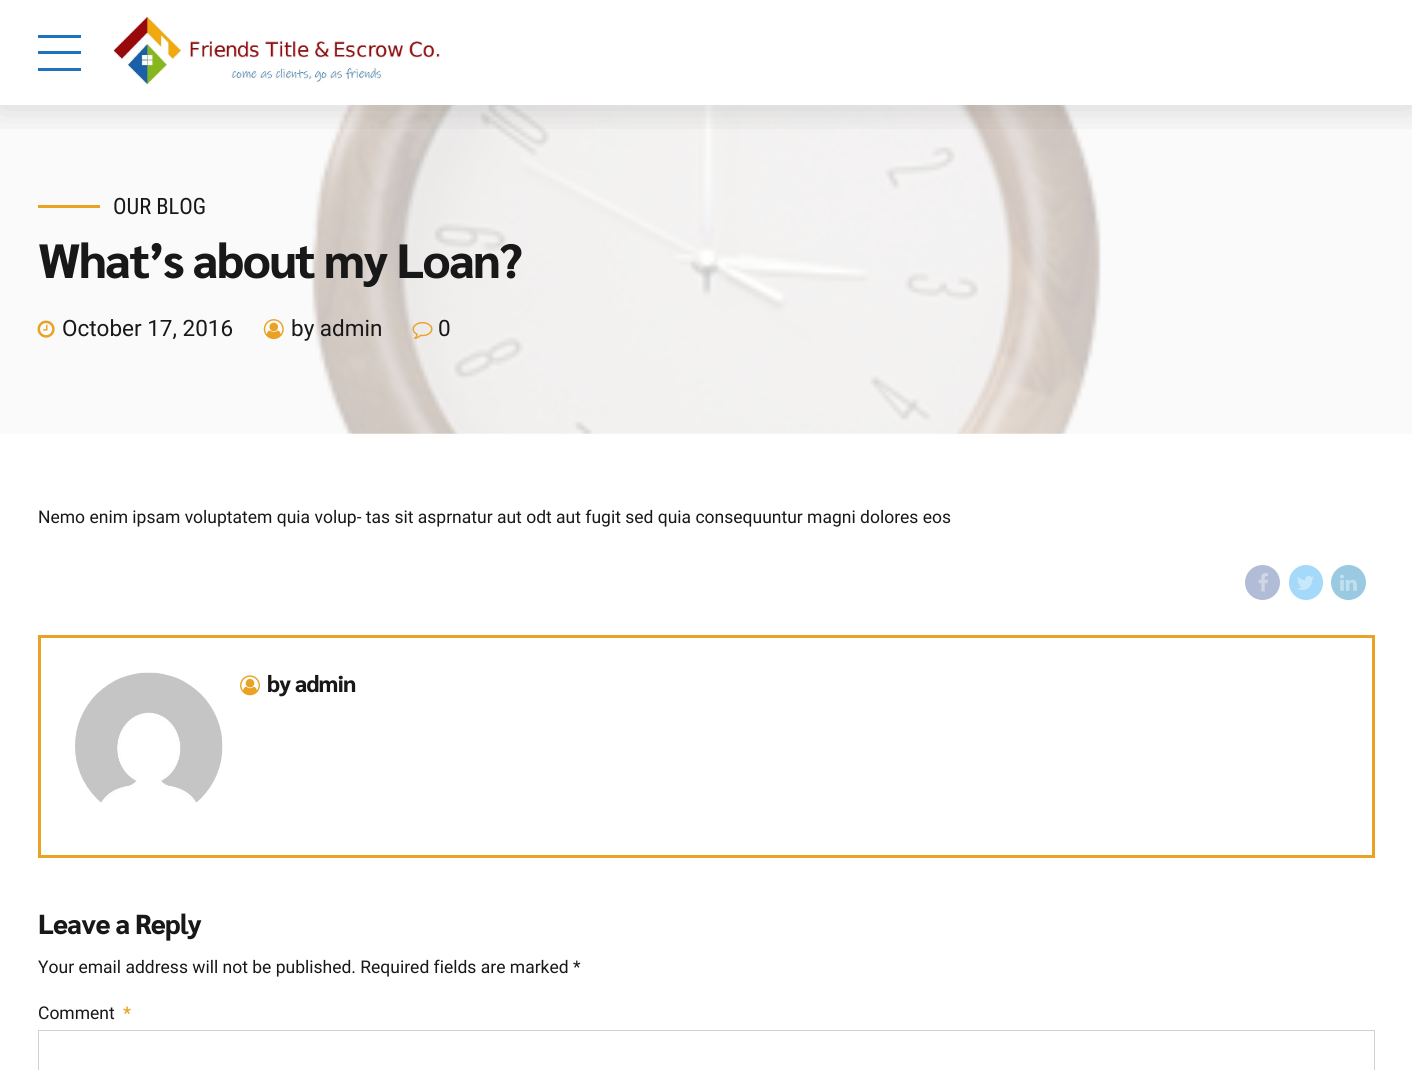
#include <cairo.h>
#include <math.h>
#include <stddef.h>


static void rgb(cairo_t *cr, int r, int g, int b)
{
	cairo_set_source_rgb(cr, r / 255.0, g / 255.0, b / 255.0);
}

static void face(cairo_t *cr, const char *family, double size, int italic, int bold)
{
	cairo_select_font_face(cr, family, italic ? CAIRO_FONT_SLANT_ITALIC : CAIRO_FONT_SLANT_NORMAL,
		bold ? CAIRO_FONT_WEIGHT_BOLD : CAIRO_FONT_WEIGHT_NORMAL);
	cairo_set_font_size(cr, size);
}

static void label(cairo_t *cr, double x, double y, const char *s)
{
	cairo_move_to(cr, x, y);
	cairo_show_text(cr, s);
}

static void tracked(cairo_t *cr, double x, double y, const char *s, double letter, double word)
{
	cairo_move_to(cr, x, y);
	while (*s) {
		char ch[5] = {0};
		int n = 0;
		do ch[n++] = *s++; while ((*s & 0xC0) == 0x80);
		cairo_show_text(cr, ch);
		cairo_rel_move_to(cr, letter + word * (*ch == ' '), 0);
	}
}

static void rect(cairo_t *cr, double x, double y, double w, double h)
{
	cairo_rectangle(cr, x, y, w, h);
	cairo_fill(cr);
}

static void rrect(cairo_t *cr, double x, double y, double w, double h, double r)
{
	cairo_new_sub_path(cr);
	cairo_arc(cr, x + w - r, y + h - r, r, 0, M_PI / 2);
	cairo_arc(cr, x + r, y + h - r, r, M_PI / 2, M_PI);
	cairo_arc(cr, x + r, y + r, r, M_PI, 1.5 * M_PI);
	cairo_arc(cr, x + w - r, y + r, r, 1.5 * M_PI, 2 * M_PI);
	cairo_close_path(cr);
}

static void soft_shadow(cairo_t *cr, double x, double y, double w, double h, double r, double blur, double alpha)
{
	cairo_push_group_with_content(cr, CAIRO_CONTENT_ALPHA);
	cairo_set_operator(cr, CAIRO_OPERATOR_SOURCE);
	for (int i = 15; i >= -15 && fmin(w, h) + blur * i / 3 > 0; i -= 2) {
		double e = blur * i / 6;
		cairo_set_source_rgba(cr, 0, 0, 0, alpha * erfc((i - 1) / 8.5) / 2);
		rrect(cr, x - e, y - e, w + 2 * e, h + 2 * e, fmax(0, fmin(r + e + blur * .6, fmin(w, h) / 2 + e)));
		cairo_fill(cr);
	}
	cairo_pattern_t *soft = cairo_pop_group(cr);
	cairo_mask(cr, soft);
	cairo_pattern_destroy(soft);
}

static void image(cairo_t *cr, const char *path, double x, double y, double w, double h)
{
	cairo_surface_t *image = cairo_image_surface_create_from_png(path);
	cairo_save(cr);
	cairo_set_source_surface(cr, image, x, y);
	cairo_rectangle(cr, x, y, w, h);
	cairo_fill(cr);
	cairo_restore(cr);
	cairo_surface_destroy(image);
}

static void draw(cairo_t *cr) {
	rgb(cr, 255, 255, 255);
	cairo_paint(cr);
	image(cr, "image1.png", 0, 105, 1412, 329);
	cairo_save(cr);
	cairo_rectangle(cr, 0, 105, 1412, 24);
	cairo_clip(cr);
	rgb(cr, 0, 0, 0);
	soft_shadow(cr, 0, 3, 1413, 105, 0, 19, 0.15);
	cairo_restore(cr);
	rgb(cr, 30, 115, 190);
	rect(cr, 38, 35, 43, 3);
	rect(cr, 38, 51, 43, 3);
	rect(cr, 38, 68, 43, 3);
	image(cr, "image0.png", 113, 16, 327, 69);
	rgb(cr, 234, 162, 37);
	rect(cr, 38, 205, 62, 3);
	face(cr, "Roboto Condensed", 22.5, 0, 0);
	rgb(cr, 24, 24, 24);
	label(cr, 113, 214, "OUR BLOG");
	face(cr, "Sarabun ExtraBold", 48, 0, 0);
	tracked(cr, 38, 278, "What’s about my Loan?", -1.4, 0);
	image(cr, "image2.png", 37, 320, 18, 18);
	face(cr, "Roboto", 22.5, 0, 0);
	label(cr, 62, 336, "October 17, 2016");
	image(cr, "image3.png", 263, 319, 21, 21);
	label(cr, 291, 336, "by admin");
	image(cr, "image4.png", 412, 322, 21, 18);
	label(cr, 438, 336, "0");
	face(cr, "Roboto", 17.5, 0, 0);
	label(cr, 38, 523, "Nemo enim ipsam voluptatem quia volup- tas sit asprnatur aut odt aut fugit sed quia consequuntur magni dolores eos");
	rgb(cr, 177, 189, 214);
	cairo_new_path(cr);
	cairo_arc(cr, 1262.5, 582.5, 17.5, 0, 2 * M_PI);
	cairo_fill(cr);
	image(cr, "image5.png", 1258, 573, 10, 19);
	rgb(cr, 165, 217, 250);
	rrect(cr, 1289, 565, 34, 35, 17);
	cairo_fill(cr);
	image(cr, "image6.png", 1297, 576, 17, 14);
	rgb(cr, 153, 202, 225);
	cairo_arc(cr, 1348.5, 582.5, 17.5, 0, 2 * M_PI);
	cairo_fill(cr);
	image(cr, "image7.png", 1340, 574, 17, 17);
	cairo_rectangle(cr, 39.5, 636.5, 1334, 220);
	rgb(cr, 234, 162, 37);
	cairo_set_line_width(cr, 3);
	cairo_stroke(cr);
	image(cr, "image8.png", 75, 672, 148, 131);
	image(cr, "image9.png", 240, 675, 20, 21);
	face(cr, "Sarabun ExtraBold", 23, 0, 0);
	rgb(cr, 24, 24, 24);
	tracked(cr, 267, 692, "by admin", -0.75, 0);
	face(cr, "Sarabun ExtraBold", 27.5, 0, 0);
	tracked(cr, 38, 934, "Leave a Reply", -0.75, 0);
	face(cr, "Roboto", 17.5, 0, 0);
	label(cr, 38, 973, "Your email address will not be published. Required fields are marked *");
	label(cr, 38, 1019, "Comment");
	face(cr, "Roboto", 17.5, 0, 1);
	rgb(cr, 234, 162, 37);
	label(cr, 123, 1019, "*");
	cairo_rectangle(cr, 38.5, 1030.5, 1336, 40);
	rgb(cr, 209, 209, 209);
	cairo_set_line_width(cr, 1);
	cairo_stroke(cr);
}

int main(void) {
	cairo_surface_t *surface = cairo_image_surface_create(CAIRO_FORMAT_RGB24, 1412, 1070);
	cairo_t *cr = cairo_create(surface);
	cairo_font_options_t *options = cairo_font_options_create();
	cairo_font_options_set_hint_metrics(options, CAIRO_HINT_METRICS_OFF);
	cairo_font_options_set_hint_style(options, CAIRO_HINT_STYLE_NONE);
	cairo_set_font_options(cr, options);
	cairo_set_miter_limit(cr, 4);
	draw(cr);
	cairo_surface_write_to_png(surface, "render.png");
	cairo_font_options_destroy(options);
	cairo_destroy(cr);
	cairo_surface_destroy(surface);
	return 0;
}
